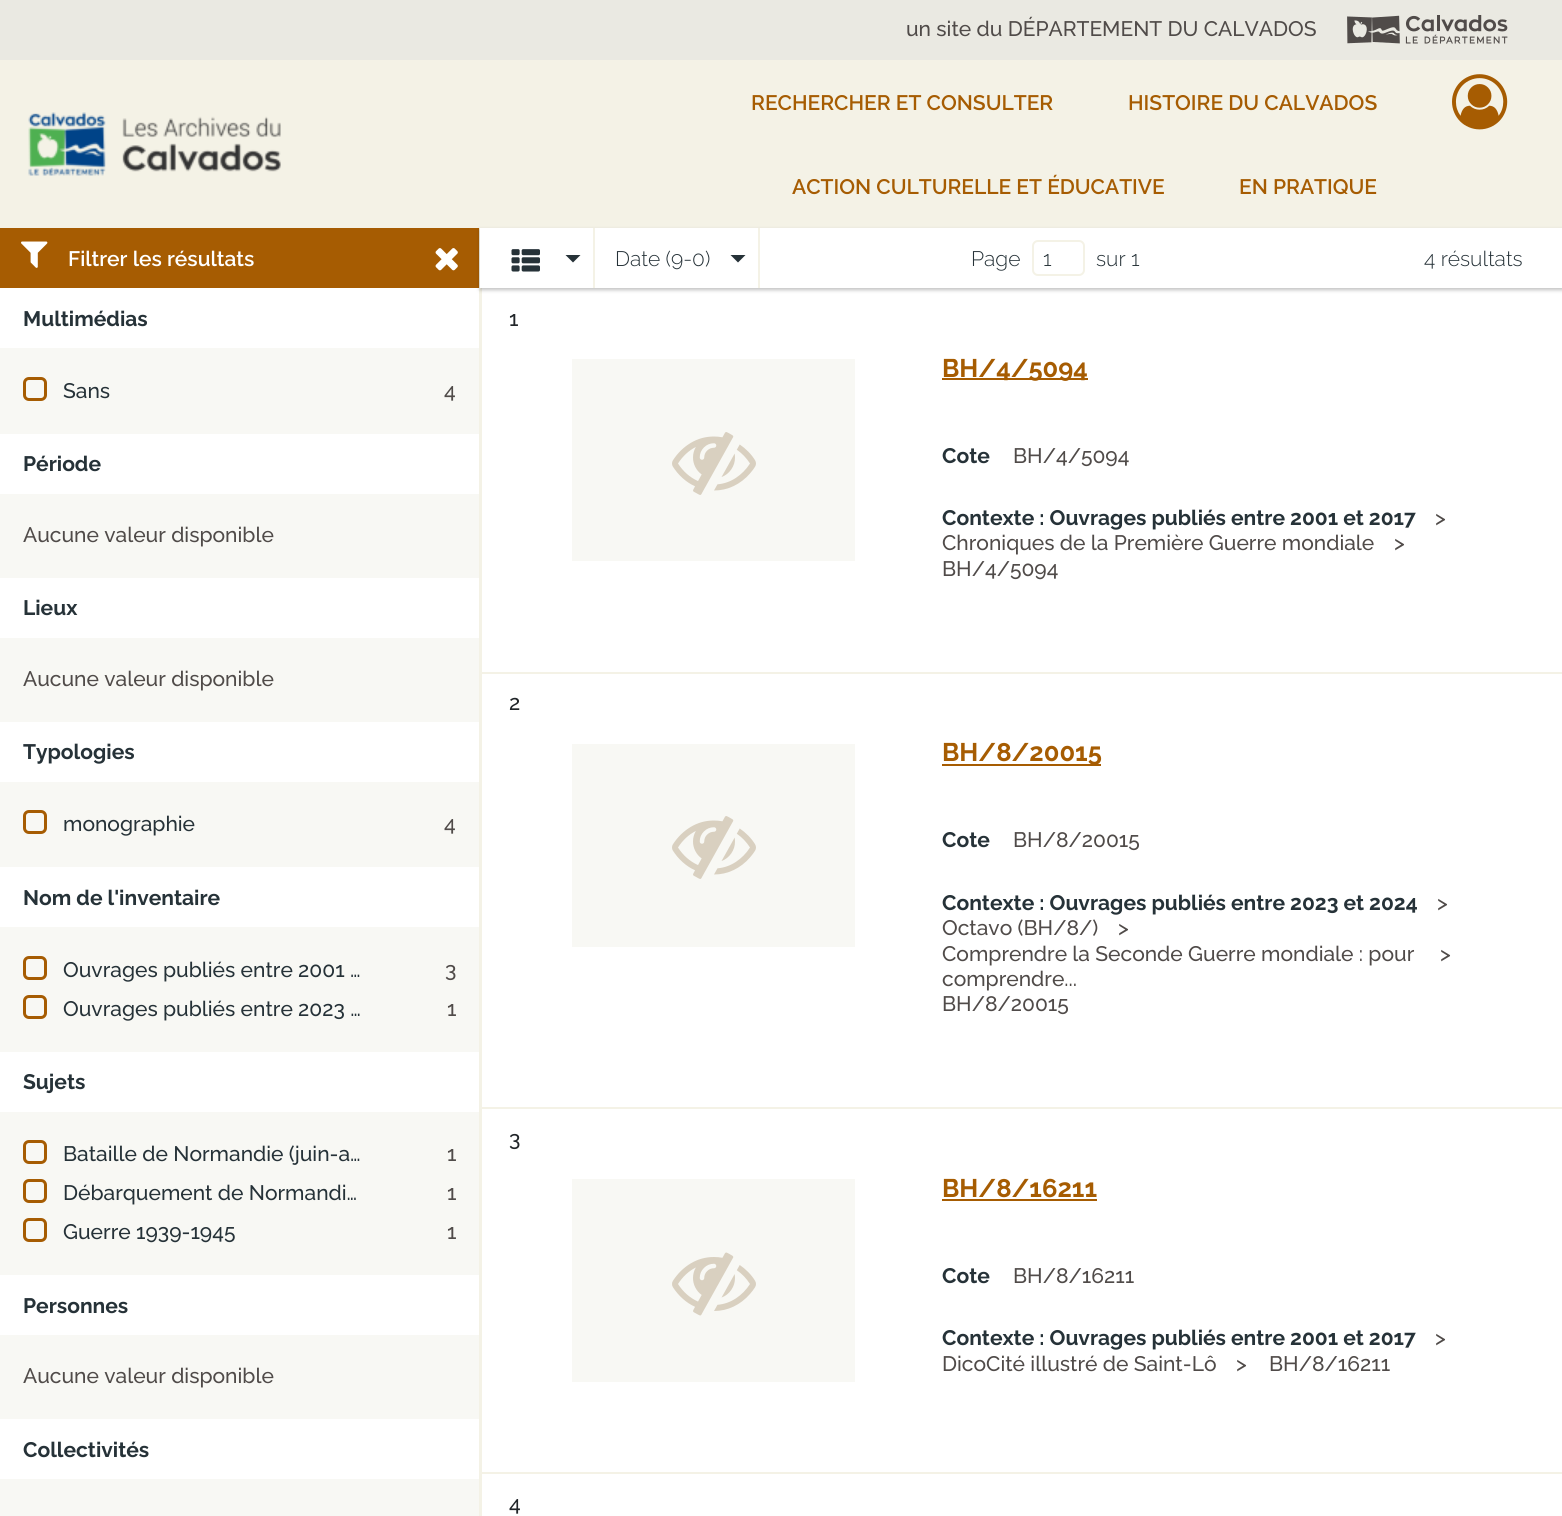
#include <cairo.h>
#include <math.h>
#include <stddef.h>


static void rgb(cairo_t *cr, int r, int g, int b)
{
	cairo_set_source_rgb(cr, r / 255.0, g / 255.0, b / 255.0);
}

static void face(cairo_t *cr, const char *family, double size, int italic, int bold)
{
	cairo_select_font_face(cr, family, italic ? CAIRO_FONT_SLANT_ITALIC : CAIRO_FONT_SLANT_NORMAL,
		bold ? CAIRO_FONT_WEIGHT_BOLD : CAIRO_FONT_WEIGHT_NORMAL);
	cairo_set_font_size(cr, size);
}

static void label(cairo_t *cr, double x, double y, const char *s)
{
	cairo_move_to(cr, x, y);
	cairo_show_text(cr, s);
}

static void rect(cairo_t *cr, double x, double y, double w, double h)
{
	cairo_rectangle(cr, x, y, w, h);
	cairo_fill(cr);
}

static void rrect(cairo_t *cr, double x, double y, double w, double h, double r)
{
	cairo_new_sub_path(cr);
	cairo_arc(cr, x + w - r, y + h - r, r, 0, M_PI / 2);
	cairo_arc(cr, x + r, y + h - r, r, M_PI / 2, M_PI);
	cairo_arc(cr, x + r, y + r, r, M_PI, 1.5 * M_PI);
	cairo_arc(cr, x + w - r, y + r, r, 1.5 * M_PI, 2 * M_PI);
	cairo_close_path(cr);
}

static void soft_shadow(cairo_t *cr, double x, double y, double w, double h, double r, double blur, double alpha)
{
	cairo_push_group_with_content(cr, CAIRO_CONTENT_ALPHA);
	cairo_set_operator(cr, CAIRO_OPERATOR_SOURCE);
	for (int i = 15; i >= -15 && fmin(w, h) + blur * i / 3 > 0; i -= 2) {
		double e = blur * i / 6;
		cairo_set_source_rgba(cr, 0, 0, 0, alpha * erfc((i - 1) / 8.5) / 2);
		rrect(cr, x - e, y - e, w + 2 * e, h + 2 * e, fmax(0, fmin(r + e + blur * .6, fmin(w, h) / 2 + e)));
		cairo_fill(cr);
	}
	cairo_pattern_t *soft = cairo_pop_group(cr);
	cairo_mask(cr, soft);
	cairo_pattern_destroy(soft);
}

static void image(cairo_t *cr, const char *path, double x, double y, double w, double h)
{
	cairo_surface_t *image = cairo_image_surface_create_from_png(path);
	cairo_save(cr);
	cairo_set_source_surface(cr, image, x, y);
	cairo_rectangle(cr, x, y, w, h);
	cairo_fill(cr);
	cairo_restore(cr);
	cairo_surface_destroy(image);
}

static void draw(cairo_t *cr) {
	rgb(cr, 255, 255, 255);
	cairo_paint(cr);
	rgb(cr, 234, 233, 226);
	rect(cr, 0, 0, 1562, 60);
	face(cr, "Raleway Medium", 21, 0, 0);
	rgb(cr, 80, 75, 73);
	label(cr, 906, 36, "un site du DÉPARTEMENT DU CALVADOS");
	image(cr, "image0.png", 1347, 15, 161, 29);
	rgb(cr, 244, 242, 230);
	rect(cr, 0, 60, 1562, 168);
	image(cr, "image1.png", 28, 112, 253, 64);
	face(cr, "Raleway SemiBold", 21, 0, 0);
	rgb(cr, 166, 92, 2);
	label(cr, 751, 110, "RECHERCHER ET CONSULTER");
	label(cr, 1128, 110, "HISTOIRE DU CALVADOS");
	label(cr, 792, 194, "ACTION CULTURELLE ET ÉDUCATIVE");
	label(cr, 1239, 194, "EN PRATIQUE");
	image(cr, "image2.png", 1452, 74, 56, 56);
	rgb(cr, 244, 242, 230);
	rect(cr, 479, 228, 1, 1288);
	rgb(cr, 166, 92, 2);
	rect(cr, 0, 228, 479, 60);
	image(cr, "image3.png", 21, 241, 27, 27);
	rgb(cr, 255, 255, 255);
	label(cr, 68, 266, "Filtrer les résultats");
	image(cr, "image4.png", 435, 248, 23, 23);
	rgb(cr, 248, 248, 244);
	rect(cr, 0, 348, 479, 86);
	face(cr, "Raleway", 21, 0, 1);
	rgb(cr, 38, 50, 56);
	label(cr, 23, 326, "Multimédias");
	rrect(cr, 24.5, 378.5, 21, 21, 4.5);
	rgb(cr, 166, 92, 2);
	cairo_set_line_width(cr, 3);
	cairo_stroke(cr);
	face(cr, "Raleway Medium", 21, 0, 0);
	rgb(cr, 38, 50, 56);
	label(cr, 63, 398, "Sans");
	rgb(cr, 80, 75, 73);
	label(cr, 444, 398, "4");
	rgb(cr, 248, 248, 244);
	rect(cr, 0, 494, 479, 84);
	face(cr, "Raleway", 21, 0, 1);
	rgb(cr, 38, 50, 56);
	label(cr, 23, 471, "Période");
	face(cr, "Raleway Medium", 21, 0, 0);
	rgb(cr, 80, 75, 73);
	label(cr, 23, 542, "Aucune valeur disponible");
	rgb(cr, 248, 248, 244);
	rect(cr, 0, 638, 479, 84);
	face(cr, "Raleway", 21, 0, 1);
	rgb(cr, 38, 50, 56);
	label(cr, 23, 615, "Lieux");
	face(cr, "Raleway Medium", 21, 0, 0);
	rgb(cr, 80, 75, 73);
	label(cr, 23, 686, "Aucune valeur disponible");
	rgb(cr, 248, 248, 244);
	rect(cr, 0, 782, 479, 85);
	face(cr, "Raleway", 21, 0, 1);
	rgb(cr, 38, 50, 56);
	label(cr, 23, 759, "Typologies");
	rrect(cr, 24.5, 811.5, 21, 21, 4.5);
	rgb(cr, 166, 92, 2);
	cairo_stroke(cr);
	face(cr, "Raleway Medium", 21, 0, 0);
	rgb(cr, 38, 50, 56);
	label(cr, 63, 831, "monographie");
	rgb(cr, 80, 75, 73);
	label(cr, 444, 831, "4");
	rgb(cr, 248, 248, 244);
	rect(cr, 0, 927, 479, 125);
	face(cr, "Raleway", 21, 0, 1);
	rgb(cr, 38, 50, 56);
	label(cr, 23, 905, "Nom de l'inventaire");
	rrect(cr, 24.5, 957.5, 21, 21, 4.5);
	rgb(cr, 166, 92, 2);
	cairo_stroke(cr);
	face(cr, "Raleway Medium", 21, 0, 0);
	rgb(cr, 38, 50, 56);
	label(cr, 63, 977, "Ouvrages publiés entre 2001 …");
	rgb(cr, 80, 75, 73);
	label(cr, 445, 977, "3");
	rrect(cr, 24.5, 996.5, 21, 21, 4.5);
	rgb(cr, 166, 92, 2);
	cairo_stroke(cr);
	rgb(cr, 38, 50, 56);
	label(cr, 63, 1016, "Ouvrages publiés entre 2023 …");
	rgb(cr, 80, 75, 73);
	label(cr, 447, 1016, "1");
	rgb(cr, 248, 248, 244);
	rect(cr, 0, 1112, 479, 163);
	face(cr, "Raleway", 21, 0, 1);
	rgb(cr, 38, 50, 56);
	label(cr, 23, 1089, "Sujets");
	rrect(cr, 24.5, 1141.5, 21, 21, 4.5);
	rgb(cr, 166, 92, 2);
	cairo_stroke(cr);
	face(cr, "Raleway Medium", 21, 0, 0);
	rgb(cr, 38, 50, 56);
	label(cr, 63, 1161, "Bataille de Normandie (juin-a…");
	rgb(cr, 80, 75, 73);
	label(cr, 447, 1161, "1");
	rrect(cr, 24.5, 1180.5, 21, 21, 4.5);
	rgb(cr, 166, 92, 2);
	cairo_stroke(cr);
	rgb(cr, 38, 50, 56);
	label(cr, 63, 1200, "Débarquement de Normandi…");
	rgb(cr, 80, 75, 73);
	label(cr, 447, 1200, "1");
	rrect(cr, 24.5, 1219.5, 21, 21, 4.5);
	rgb(cr, 166, 92, 2);
	cairo_stroke(cr);
	rgb(cr, 38, 50, 56);
	label(cr, 63, 1239, "Guerre 1939-1945");
	rgb(cr, 80, 75, 73);
	label(cr, 447, 1239, "1");
	rgb(cr, 248, 248, 244);
	rect(cr, 0, 1335, 479, 84);
	face(cr, "Raleway", 21, 0, 1);
	rgb(cr, 38, 50, 56);
	label(cr, 23, 1313, "Personnes");
	face(cr, "Raleway Medium", 21, 0, 0);
	rgb(cr, 80, 75, 73);
	label(cr, 23, 1383, "Aucune valeur disponible");
	rgb(cr, 248, 248, 244);
	rect(cr, 0, 1479, 479, 37);
	face(cr, "Raleway", 21, 0, 1);
	rgb(cr, 38, 50, 56);
	label(cr, 23, 1457, "Collectivités");
	rgb(cr, 244, 242, 230);
	rect(cr, 480, 288, 2, 1228);
	rgb(cr, 0, 0, 0);
	soft_shadow(cr, 480, 230, 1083, 60, 0, 2, 0.25);
	rgb(cr, 255, 255, 255);
	rect(cr, 480, 228, 1082, 60);
	rgb(cr, 244, 242, 230);
	rect(cr, 593, 228, 2, 60);
	image(cr, "image5.png", 511, 249, 29, 23);
	rgb(cr, 38, 50, 56);
	cairo_new_path(cr);
	cairo_move_to(cr, 565.5, 255);
	cairo_line_to(cr, 580.5, 255);
	cairo_line_to(cr, 573, 262.5);
	cairo_close_path(cr);
	cairo_fill(cr);
	rgb(cr, 244, 242, 230);
	rect(cr, 758, 228, 2, 60);
	face(cr, "Raleway Light", 21, 0, 0);
	rgb(cr, 38, 50, 56);
	label(cr, 615, 266, "Date (9-0)");
	cairo_new_path(cr);
	cairo_move_to(cr, 730.5, 255);
	cairo_line_to(cr, 745.5, 255);
	cairo_line_to(cr, 738, 262.5);
	cairo_close_path(cr);
	cairo_fill(cr);
	label(cr, 971, 266, "Page");
	rrect(cr, 1033, 241, 51, 34, 5);
	rgb(cr, 244, 242, 230);
	cairo_set_line_width(cr, 2);
	cairo_stroke(cr);
	rgb(cr, 38, 50, 56);
	label(cr, 1043, 266, "1");
	label(cr, 1096, 266, "sur 1");
	label(cr, 1424, 266, "4 résultats");
	rgb(cr, 244, 242, 230);
	rect(cr, 482, 672, 1080, 2);
	face(cr, "Raleway Medium", 21, 0, 0);
	rgb(cr, 33, 37, 41);
	label(cr, 509, 326, "1");
	rgb(cr, 248, 248, 244);
	rect(cr, 572, 359, 283, 202);
	image(cr, "image6.png", 672, 432, 84, 63);
	rgb(cr, 166, 92, 2);
	rect(cr, 942, 378, 146, 2);
	face(cr, "Raleway", 25.5, 0, 1);
	label(cr, 942, 377, "BH/4/5094");
	face(cr, "Raleway", 21, 0, 1);
	rgb(cr, 38, 50, 56);
	label(cr, 942, 463, "Cote");
	face(cr, "Raleway Medium", 21, 0, 0);
	rgb(cr, 80, 75, 73);
	label(cr, 1013, 463, "BH/4/5094");
	face(cr, "Raleway", 21, 0, 1);
	rgb(cr, 38, 50, 56);
	label(cr, 942, 525, "Contexte : Ouvrages publiés entre 2001 et 2017");
	face(cr, "Raleway Medium", 21, 0, 0);
	rgb(cr, 80, 75, 73);
	label(cr, 1435, 525, ">");
	label(cr, 942, 550, "Chroniques de la Première Guerre mondiale");
	label(cr, 1394, 550, ">");
	label(cr, 942, 576, "BH/4/5094");
	rgb(cr, 244, 242, 230);
	rect(cr, 482, 1107, 1080, 2);
	rgb(cr, 33, 37, 41);
	label(cr, 509, 710, "2");
	rgb(cr, 248, 248, 244);
	rect(cr, 572, 744, 283, 203);
	image(cr, "image6.png", 672, 816, 84, 63);
	rgb(cr, 166, 92, 2);
	rect(cr, 942, 764, 159, 2);
	face(cr, "Raleway", 25.5, 0, 1);
	label(cr, 942, 761, "BH/8/20015");
	face(cr, "Raleway", 21, 0, 1);
	rgb(cr, 38, 50, 56);
	label(cr, 942, 847, "Cote");
	face(cr, "Raleway Medium", 21, 0, 0);
	rgb(cr, 80, 75, 73);
	label(cr, 1013, 847, "BH/8/20015");
	face(cr, "Raleway", 21, 0, 1);
	rgb(cr, 38, 50, 56);
	label(cr, 942, 910, "Contexte : Ouvrages publiés entre 2023 et 2024");
	face(cr, "Raleway Medium", 21, 0, 0);
	rgb(cr, 80, 75, 73);
	label(cr, 1437, 910, ">");
	label(cr, 942, 935, "Octavo (BH/8/)");
	label(cr, 1118, 935, ">");
	label(cr, 942, 961, "Comprendre la Seconde Guerre mondiale : pour");
	label(cr, 1440, 961, ">");
	label(cr, 942, 986, "comprendre...");
	label(cr, 942, 1011, "BH/8/20015");
	rgb(cr, 244, 242, 230);
	rect(cr, 482, 1472, 1080, 2);
	rgb(cr, 33, 37, 41);
	label(cr, 509, 1146, "3");
	rgb(cr, 248, 248, 244);
	rect(cr, 572, 1179, 283, 203);
	image(cr, "image7.png", 672, 1252, 84, 64);
	face(cr, "Raleway", 25.5, 0, 1);
	rgb(cr, 166, 92, 2);
	label(cr, 942, 1197, "BH/8/16211");
	rect(cr, 942, 1199, 155, 2);
	face(cr, "Raleway", 21, 0, 1);
	rgb(cr, 38, 50, 56);
	label(cr, 942, 1283, "Cote");
	face(cr, "Raleway Medium", 21, 0, 0);
	rgb(cr, 80, 75, 73);
	label(cr, 1013, 1283, "BH/8/16211");
	face(cr, "Raleway", 21, 0, 1);
	rgb(cr, 38, 50, 56);
	label(cr, 942, 1345, "Contexte : Ouvrages publiés entre 2001 et 2017");
	face(cr, "Raleway Medium", 21, 0, 0);
	rgb(cr, 80, 75, 73);
	label(cr, 1435, 1345, ">");
	label(cr, 942, 1371, "DicoCité illustré de Saint-Lô");
	label(cr, 1236, 1371, ">");
	label(cr, 1269, 1371, "BH/8/16211");
	rgb(cr, 33, 37, 41);
	label(cr, 509, 1511, "4");
}

int main(void) {
	cairo_surface_t *surface = cairo_image_surface_create(CAIRO_FORMAT_RGB24, 1562, 1516);
	cairo_t *cr = cairo_create(surface);
	cairo_font_options_t *options = cairo_font_options_create();
	cairo_font_options_set_hint_metrics(options, CAIRO_HINT_METRICS_OFF);
	cairo_font_options_set_hint_style(options, CAIRO_HINT_STYLE_NONE);
	cairo_set_font_options(cr, options);
	cairo_set_miter_limit(cr, 4);
	draw(cr);
	cairo_surface_write_to_png(surface, "render.png");
	cairo_font_options_destroy(options);
	cairo_destroy(cr);
	cairo_surface_destroy(surface);
	return 0;
}
